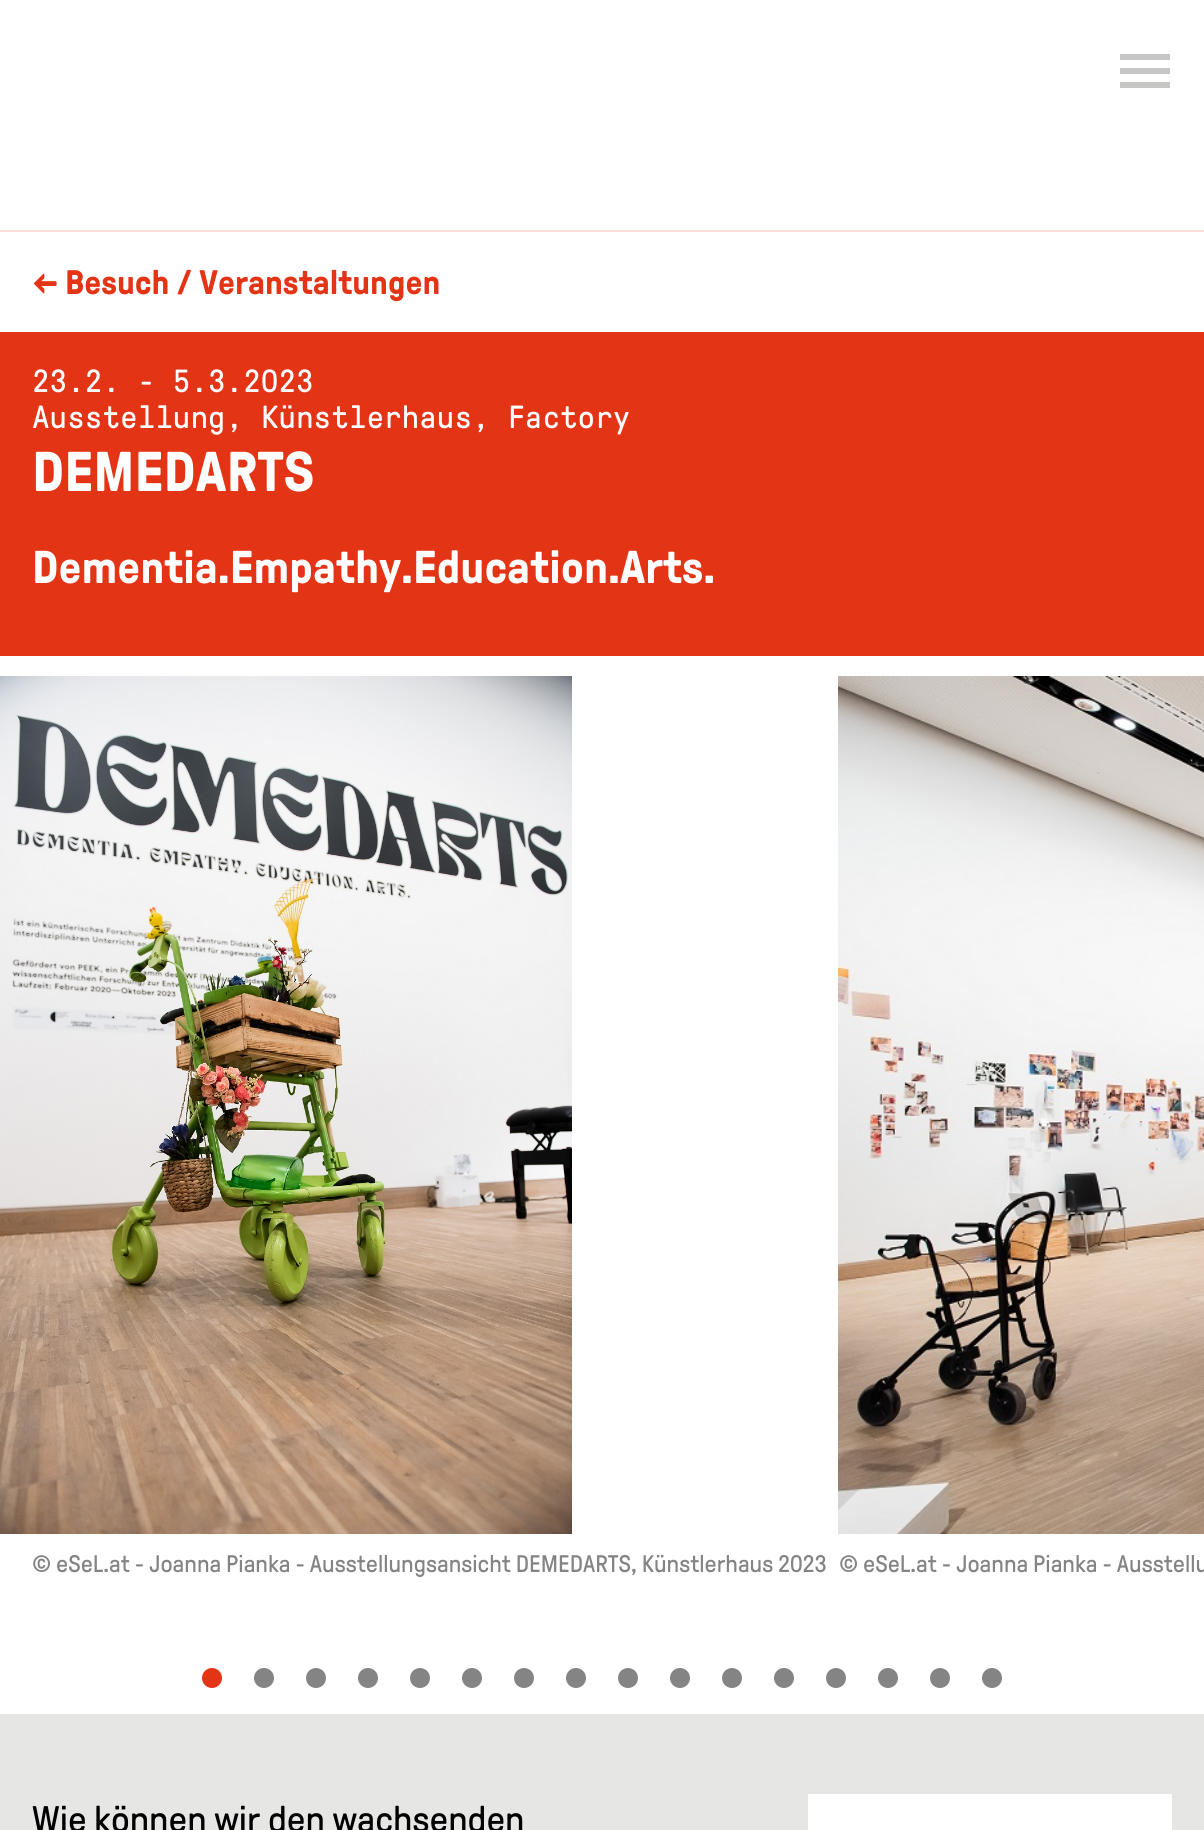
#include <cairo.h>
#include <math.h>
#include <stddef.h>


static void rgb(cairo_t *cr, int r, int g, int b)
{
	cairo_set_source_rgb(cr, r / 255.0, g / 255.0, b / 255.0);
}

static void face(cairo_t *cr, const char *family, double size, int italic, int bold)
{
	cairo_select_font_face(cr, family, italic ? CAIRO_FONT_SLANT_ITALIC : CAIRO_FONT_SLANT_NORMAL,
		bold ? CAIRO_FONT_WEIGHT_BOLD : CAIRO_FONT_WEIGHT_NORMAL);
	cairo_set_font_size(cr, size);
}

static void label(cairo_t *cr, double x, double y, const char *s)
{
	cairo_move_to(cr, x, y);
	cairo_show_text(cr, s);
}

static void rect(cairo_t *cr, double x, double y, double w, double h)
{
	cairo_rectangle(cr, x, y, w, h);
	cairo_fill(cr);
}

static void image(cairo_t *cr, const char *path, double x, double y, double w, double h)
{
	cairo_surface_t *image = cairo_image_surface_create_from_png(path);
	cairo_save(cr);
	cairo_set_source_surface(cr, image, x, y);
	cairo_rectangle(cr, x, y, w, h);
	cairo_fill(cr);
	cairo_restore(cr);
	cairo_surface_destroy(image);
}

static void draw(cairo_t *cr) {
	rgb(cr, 230, 230, 229);
	cairo_paint(cr);
	rgb(cr, 255, 255, 255);
	rect(cr, 0, 0, 1204, 230);
	rgb(cr, 198, 198, 197);
	rect(cr, 1120, 68, 50, 6);
	rect(cr, 1120, 54, 50, 6);
	rect(cr, 1120, 82, 50, 6);
	rgb(cr, 255, 255, 255);
	rect(cr, 0, 232, 1204, 100);
	rgb(cr, 250, 222, 218);
	rect(cr, 0, 230, 1204, 2);
	face(cr, "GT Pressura", 41, 0, 1);
	rgb(cr, 228, 52, 22);
	label(cr, 32, 294, "←");
	face(cr, "GT Pressura", 34, 0, 1);
	label(cr, 65, 294, "Besuch / Veranstaltungen");
	rect(cr, 0, 332, 1204, 324);
	face(cr, "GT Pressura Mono", 32, 0, 0);
	rgb(cr, 255, 255, 255);
	label(cr, 32, 392, "23.2. - 5.3.2023");
	label(cr, 32, 428, "Ausstellung, Künstlerhaus, Factory");
	face(cr, "GT Pressura", 56, 0, 1);
	label(cr, 32, 491, "DEMEDARTS");
	face(cr, "GT Pressura", 46, 0, 1);
	label(cr, 32, 583, "Dementia.Empathy.Education.Arts.");
	rect(cr, 0, 656, 1204, 1058);
	image(cr, "image0.png", 0, 676, 572, 858);
	face(cr, "GT Pressura", 24, 0, 0);
	rgb(cr, 132, 132, 132);
	label(cr, 32, 1572, "© eSeL.at - Joanna Pianka - Ausstellungsansicht DEMEDARTS, Künstlerhaus 2023");
	image(cr, "image1.png", 838, 676, 366, 858);
	label(cr, 839, 1572, "© eSeL.at - Joanna Pianka - Ausstellu");
	rgb(cr, 228, 52, 22);
	cairo_new_path(cr);
	cairo_arc(cr, 212, 1678, 10, 0, 2 * M_PI);
	cairo_fill(cr);
	rgb(cr, 132, 132, 132);
	cairo_arc(cr, 264, 1678, 10, 0, 2 * M_PI);
	cairo_fill(cr);
	cairo_arc(cr, 316, 1678, 10, 0, 2 * M_PI);
	cairo_fill(cr);
	cairo_arc(cr, 368, 1678, 10, 0, 2 * M_PI);
	cairo_fill(cr);
	cairo_arc(cr, 420, 1678, 10, 0, 2 * M_PI);
	cairo_fill(cr);
	cairo_arc(cr, 472, 1678, 10, 0, 2 * M_PI);
	cairo_fill(cr);
	cairo_arc(cr, 524, 1678, 10, 0, 2 * M_PI);
	cairo_fill(cr);
	cairo_arc(cr, 576, 1678, 10, 0, 2 * M_PI);
	cairo_fill(cr);
	cairo_arc(cr, 628, 1678, 10, 0, 2 * M_PI);
	cairo_fill(cr);
	cairo_arc(cr, 680, 1678, 10, 0, 2 * M_PI);
	cairo_fill(cr);
	cairo_arc(cr, 732, 1678, 10, 0, 2 * M_PI);
	cairo_fill(cr);
	cairo_arc(cr, 784, 1678, 10, 0, 2 * M_PI);
	cairo_fill(cr);
	cairo_arc(cr, 836, 1678, 10, 0, 2 * M_PI);
	cairo_fill(cr);
	cairo_arc(cr, 888, 1678, 10, 0, 2 * M_PI);
	cairo_fill(cr);
	cairo_arc(cr, 940, 1678, 10, 0, 2 * M_PI);
	cairo_fill(cr);
	cairo_arc(cr, 992, 1678, 10, 0, 2 * M_PI);
	cairo_fill(cr);
	face(cr, "GT Pressura", 37, 0, 0);
	rgb(cr, 0, 0, 0);
	label(cr, 32, 1832, "Wie können wir den wachsenden");
	rgb(cr, 255, 255, 255);
	rect(cr, 808, 1794, 364, 36);
}

int main(void) {
	cairo_surface_t *surface = cairo_image_surface_create(CAIRO_FORMAT_RGB24, 1204, 1830);
	cairo_t *cr = cairo_create(surface);
	cairo_font_options_t *options = cairo_font_options_create();
	cairo_font_options_set_hint_metrics(options, CAIRO_HINT_METRICS_OFF);
	cairo_font_options_set_hint_style(options, CAIRO_HINT_STYLE_NONE);
	cairo_set_font_options(cr, options);
	cairo_set_miter_limit(cr, 4);
	draw(cr);
	cairo_surface_write_to_png(surface, "render.png");
	cairo_font_options_destroy(options);
	cairo_destroy(cr);
	cairo_surface_destroy(surface);
	return 0;
}
